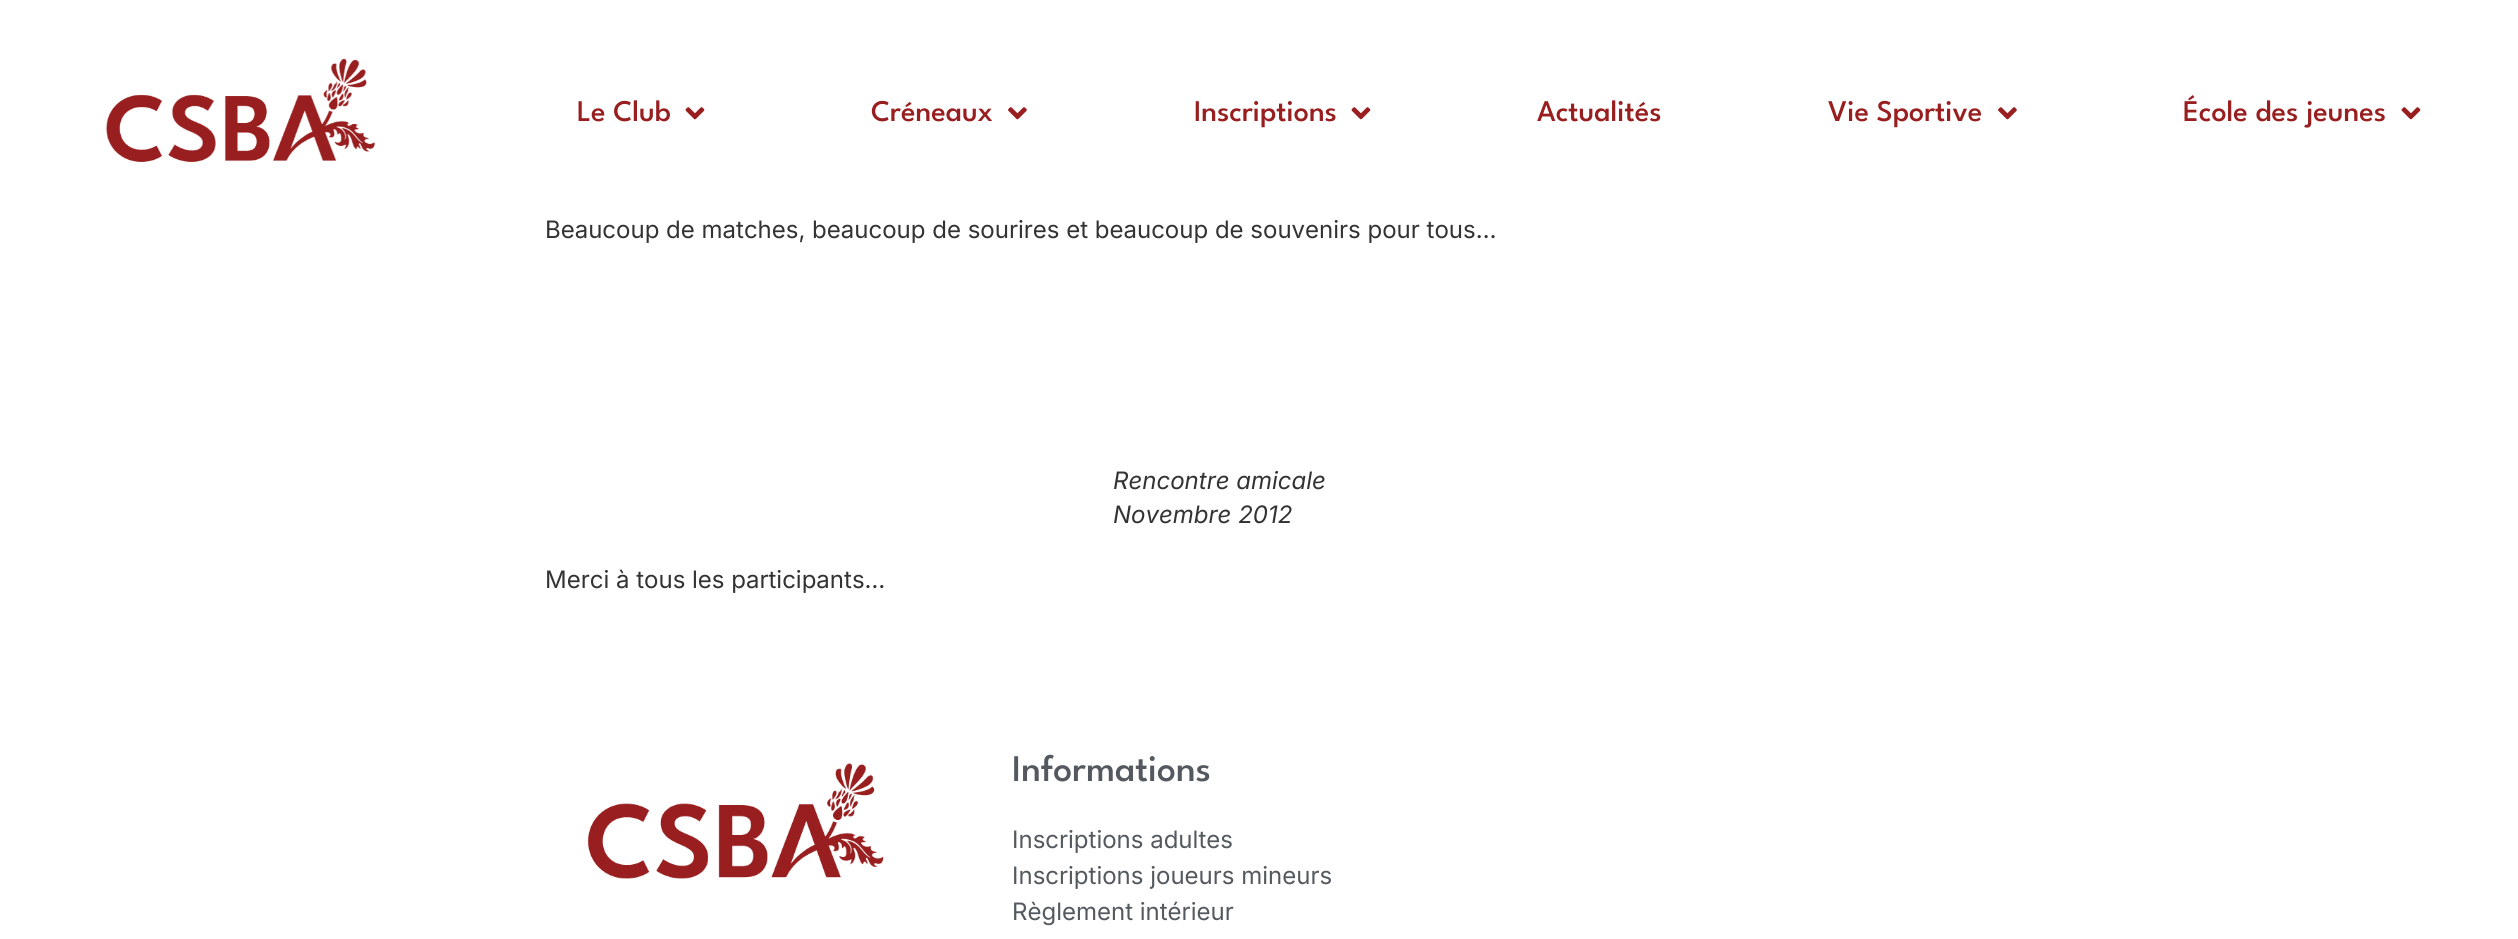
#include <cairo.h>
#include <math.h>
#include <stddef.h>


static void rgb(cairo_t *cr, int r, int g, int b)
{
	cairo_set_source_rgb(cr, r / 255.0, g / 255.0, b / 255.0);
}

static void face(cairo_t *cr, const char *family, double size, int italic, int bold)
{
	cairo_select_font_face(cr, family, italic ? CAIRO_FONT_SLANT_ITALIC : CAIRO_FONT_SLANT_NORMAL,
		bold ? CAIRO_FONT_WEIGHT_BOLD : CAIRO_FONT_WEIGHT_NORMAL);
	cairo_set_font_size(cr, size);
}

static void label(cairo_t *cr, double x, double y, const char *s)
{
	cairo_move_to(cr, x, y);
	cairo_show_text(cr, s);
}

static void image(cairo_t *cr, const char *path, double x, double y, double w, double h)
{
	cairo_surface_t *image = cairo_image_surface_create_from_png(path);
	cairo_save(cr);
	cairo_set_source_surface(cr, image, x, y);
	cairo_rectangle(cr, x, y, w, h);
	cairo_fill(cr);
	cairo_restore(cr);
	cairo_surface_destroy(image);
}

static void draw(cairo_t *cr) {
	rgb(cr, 255, 255, 255);
	cairo_paint(cr);
	image(cr, "image0.png", 105, 58, 270, 104);
	face(cr, "League Spartan Medium", 30, 0, 0);
	rgb(cr, 152, 30, 31);
	label(cr, 577, 121, "Le Club");
	image(cr, "image1.png", 685, 107, 20, 13);
	label(cr, 871, 121, "Créneaux");
	image(cr, "image2.png", 1008, 107, 19, 13);
	label(cr, 1194, 121, "Inscriptions");
	image(cr, "image1.png", 1351, 107, 20, 13);
	label(cr, 1537, 121, "Actualités");
	label(cr, 1828, 121, "Vie Sportive");
	image(cr, "image2.png", 1998, 107, 19, 13);
	label(cr, 2183, 121, "École des jeunes");
	image(cr, "image1.png", 2401, 107, 20, 13);
	face(cr, "Inter", 24, 0, 0);
	rgb(cr, 51, 51, 51);
	label(cr, 545, 238, "Beaucoup de matches, beaucoup de sourires et beaucoup de souvenirs pour tous…");
	face(cr, "Inter", 24, 1, 0);
	label(cr, 1113, 489, "Rencontre amicale");
	label(cr, 1113, 523, "Novembre 2012");
	face(cr, "Inter", 24, 0, 0);
	label(cr, 545, 588, "Merci à tous les participants…");
	image(cr, "image3.png", 587, 763, 297, 116);
	face(cr, "League Spartan Medium", 37.5, 0, 0);
	rgb(cr, 84, 89, 95);
	label(cr, 1012, 781, "Informations");
	face(cr, "Inter", 24, 0, 0);
	label(cr, 1012, 848, "Inscriptions adultes");
	label(cr, 1012, 884, "Inscriptions joueurs mineurs");
	label(cr, 1012, 920, "Règlement intérieur");
}

int main(void) {
	cairo_surface_t *surface = cairo_image_surface_create(CAIRO_FORMAT_RGB24, 2518, 939);
	cairo_t *cr = cairo_create(surface);
	cairo_font_options_t *options = cairo_font_options_create();
	cairo_font_options_set_hint_metrics(options, CAIRO_HINT_METRICS_OFF);
	cairo_font_options_set_hint_style(options, CAIRO_HINT_STYLE_NONE);
	cairo_set_font_options(cr, options);
	cairo_set_miter_limit(cr, 4);
	draw(cr);
	cairo_surface_write_to_png(surface, "render.png");
	cairo_font_options_destroy(options);
	cairo_destroy(cr);
	cairo_surface_destroy(surface);
	return 0;
}
